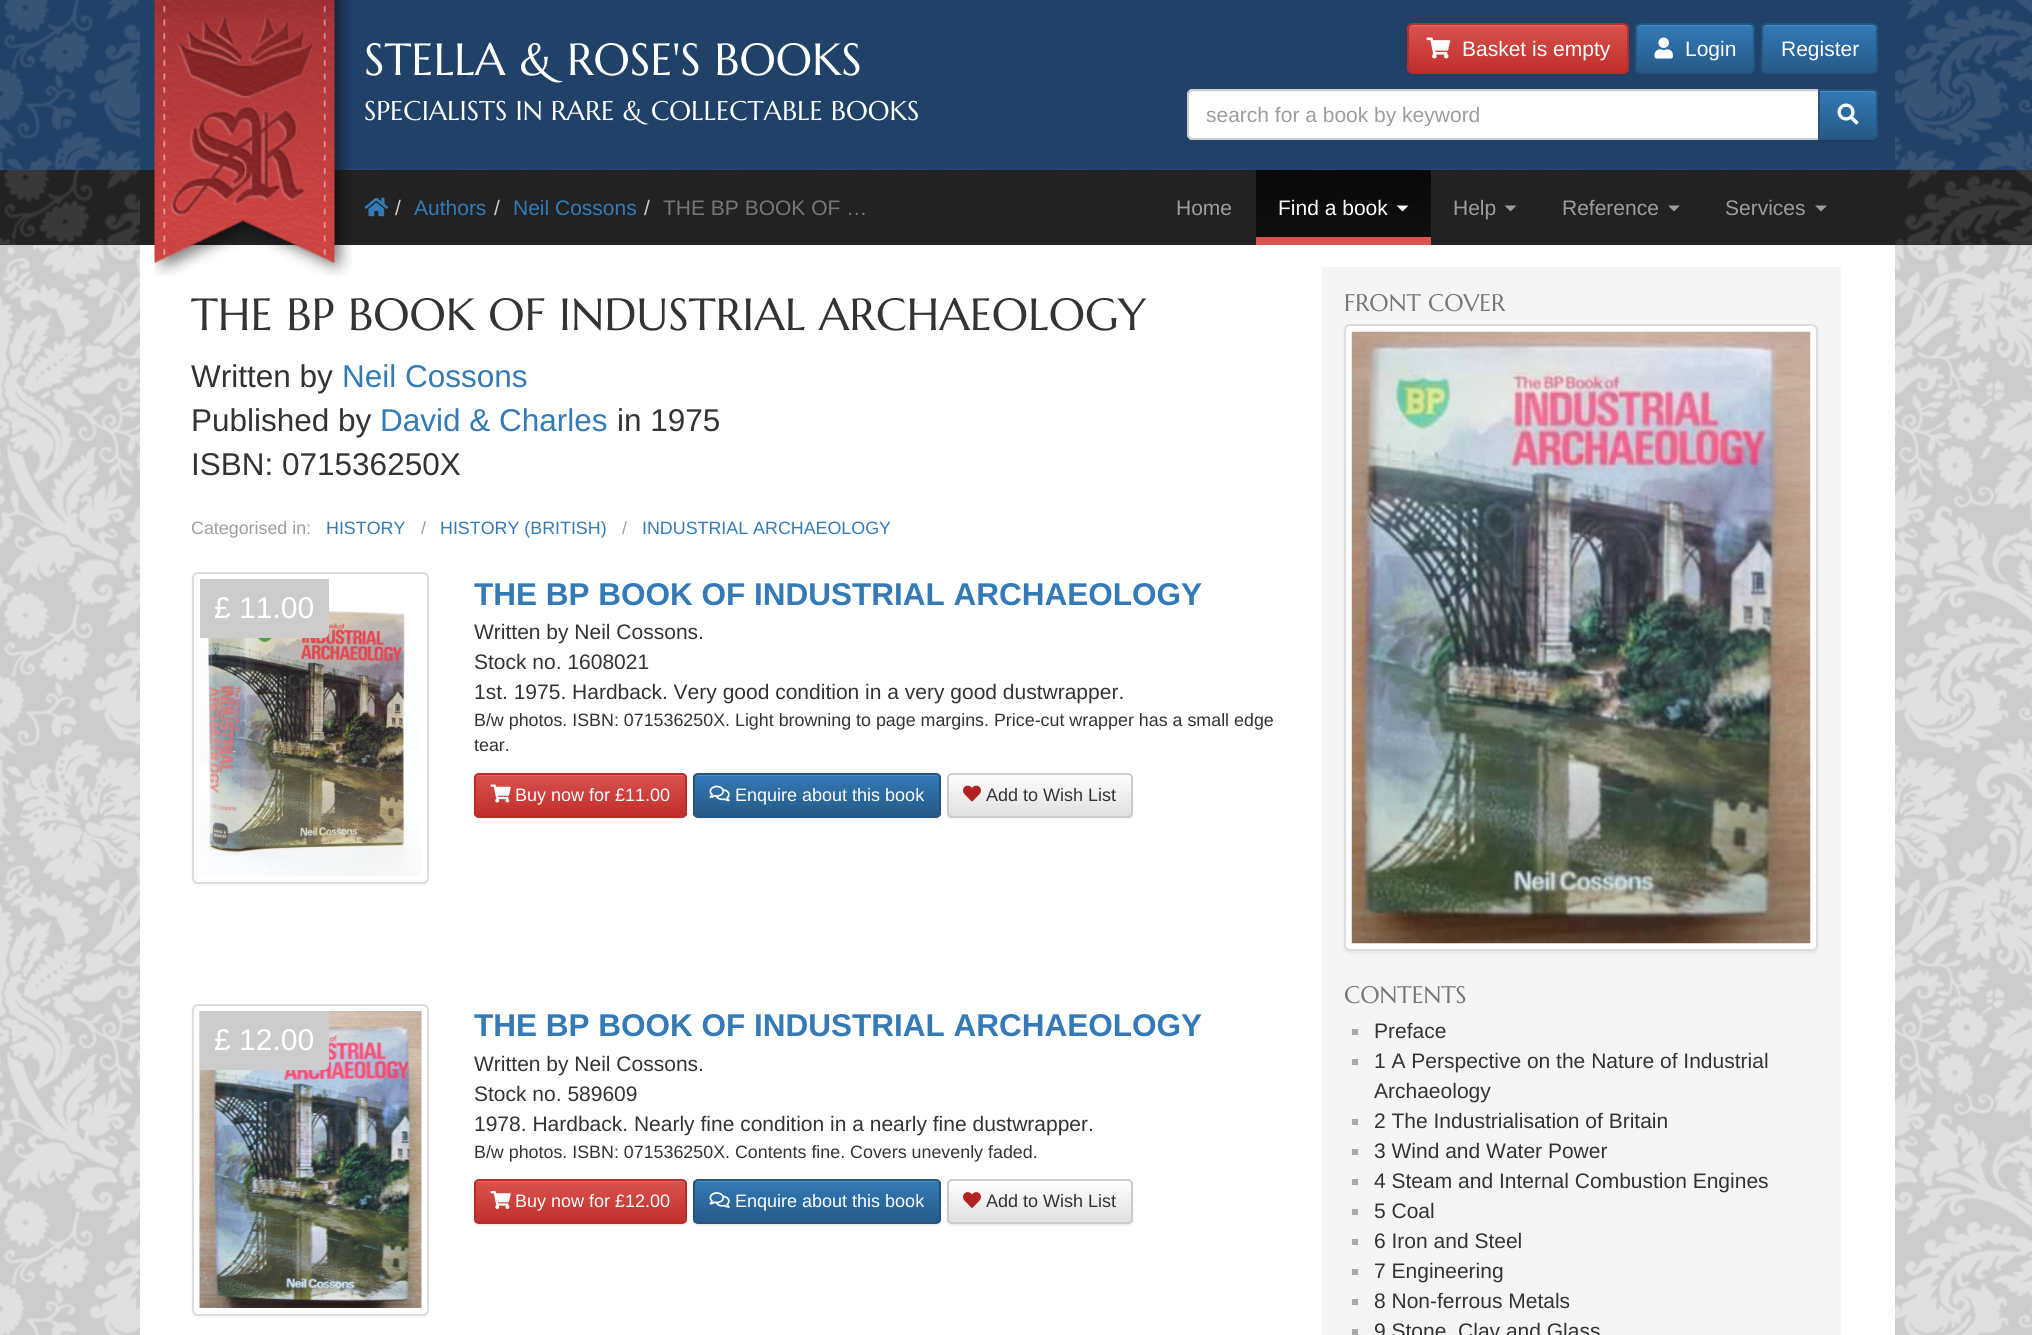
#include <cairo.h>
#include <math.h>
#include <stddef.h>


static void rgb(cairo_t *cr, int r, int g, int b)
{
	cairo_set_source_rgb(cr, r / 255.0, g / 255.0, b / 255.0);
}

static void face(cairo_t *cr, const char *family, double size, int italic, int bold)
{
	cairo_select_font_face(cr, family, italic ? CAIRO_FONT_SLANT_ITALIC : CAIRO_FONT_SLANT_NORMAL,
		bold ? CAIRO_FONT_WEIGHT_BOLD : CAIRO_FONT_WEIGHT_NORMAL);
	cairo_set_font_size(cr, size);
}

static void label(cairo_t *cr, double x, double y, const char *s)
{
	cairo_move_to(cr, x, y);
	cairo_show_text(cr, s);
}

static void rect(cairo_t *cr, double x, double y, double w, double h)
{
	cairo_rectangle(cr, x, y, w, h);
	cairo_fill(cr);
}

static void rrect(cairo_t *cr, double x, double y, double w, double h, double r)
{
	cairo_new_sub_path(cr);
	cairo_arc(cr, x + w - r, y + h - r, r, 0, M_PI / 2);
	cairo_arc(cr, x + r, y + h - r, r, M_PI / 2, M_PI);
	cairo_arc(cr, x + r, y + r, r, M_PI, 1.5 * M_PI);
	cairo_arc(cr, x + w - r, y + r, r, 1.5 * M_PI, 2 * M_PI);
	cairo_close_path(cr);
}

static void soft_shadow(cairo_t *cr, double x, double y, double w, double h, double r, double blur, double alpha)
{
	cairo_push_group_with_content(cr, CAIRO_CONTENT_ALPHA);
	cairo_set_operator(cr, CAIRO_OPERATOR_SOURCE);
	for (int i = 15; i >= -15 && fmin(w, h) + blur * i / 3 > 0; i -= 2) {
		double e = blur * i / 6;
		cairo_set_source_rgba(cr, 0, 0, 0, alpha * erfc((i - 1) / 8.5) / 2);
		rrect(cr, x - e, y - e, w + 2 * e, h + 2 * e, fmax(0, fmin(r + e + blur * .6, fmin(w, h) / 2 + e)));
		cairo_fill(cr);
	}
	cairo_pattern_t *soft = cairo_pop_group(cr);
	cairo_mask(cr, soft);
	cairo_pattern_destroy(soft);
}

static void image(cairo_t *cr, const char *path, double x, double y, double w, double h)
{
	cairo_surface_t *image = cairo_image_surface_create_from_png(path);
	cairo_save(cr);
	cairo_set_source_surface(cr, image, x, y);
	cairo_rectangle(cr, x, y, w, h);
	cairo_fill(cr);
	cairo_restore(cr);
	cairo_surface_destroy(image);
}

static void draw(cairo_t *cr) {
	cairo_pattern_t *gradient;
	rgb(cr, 204, 204, 204);
	cairo_paint(cr);
	image(cr, "image0.png", 0, 245, 2032, 1090);
	rgb(cr, 32, 65, 104);
	rect(cr, 0, 0, 2032, 170);
	image(cr, "image1.png", 0, 0, 2032, 170);
	rect(cr, 140, 0, 1755, 170);
	rgb(cr, 34, 34, 34);
	rect(cr, 0, 170, 2032, 75);
	image(cr, "image6.png", 0, 169, 2032, 76);
	rect(cr, 140, 170, 1755, 75);
	rgb(cr, 255, 255, 255);
	rect(cr, 140, 245, 1755, 1090);
	image(cr, "image2.png", 154, 0, 198, 276);
	face(cr, "Marcellus", 45, 0, 0);
	label(cr, 364, 75, "STELLA & ROSE'S BOOKS");
	face(cr, "Marcellus", 27, 0, 0);
	label(cr, 364, 120, "SPECIALISTS IN RARE & COLLECTABLE BOOKS");
	cairo_save(cr);
	rrect(cr, 1407, 23, 222, 51, 6);
	cairo_clip(cr);
	gradient = cairo_pattern_create_linear(1518, 24, 1518, 72);
	cairo_pattern_add_color_stop_rgba(gradient, 0, 0.851, 0.325, 0.31, 1);
	cairo_pattern_add_color_stop_rgba(gradient, 1, 0.757, 0.18, 0.165, 1);
	cairo_set_source(cr, gradient);
	cairo_pattern_destroy(gradient);
	rect(cr, 1407, 24, 222, 48);
	cairo_restore(cr);
	cairo_set_source_rgba(cr, 1, 1, 1, 0.15);
	cairo_new_path(cr);
	cairo_move_to(cr, 1413, 26);
	cairo_line_to(cr, 1623, 26);
	cairo_curve_to(cr, 1625, 26, 1628, 28, 1628, 30);
	cairo_line_to(cr, 1628, 29);
	cairo_curve_to(cr, 1628, 26, 1626, 24, 1623, 24);
	cairo_line_to(cr, 1414, 24);
	cairo_curve_to(cr, 1412, 24, 1410, 26, 1409, 28);
	cairo_curve_to(cr, 1410, 27, 1412, 26, 1413, 26);
	cairo_close_path(cr);
	cairo_fill(cr);
	rrect(cr, 1408, 24, 220, 49, 5);
	rgb(cr, 185, 44, 40);
	cairo_stroke(cr);
	image(cr, "image3.png", 1426, 37, 25, 22);
	face(cr, "Liberation Sans", 21, 0, 0);
	rgb(cr, 255, 255, 255);
	label(cr, 1462, 56, "Basket is empty");
	cairo_save(cr);
	rrect(cr, 1635, 23, 120, 51, 6);
	cairo_clip(cr);
	gradient = cairo_pattern_create_linear(1695, 24, 1695, 72);
	cairo_pattern_add_color_stop_rgba(gradient, 0, 0.2, 0.478, 0.718, 1);
	cairo_pattern_add_color_stop_rgba(gradient, 1, 0.149, 0.353, 0.533, 1);
	cairo_set_source(cr, gradient);
	cairo_pattern_destroy(gradient);
	rect(cr, 1635, 24, 120, 48);
	cairo_restore(cr);
	cairo_set_source_rgba(cr, 1, 1, 1, 0.15);
	cairo_new_path(cr);
	cairo_move_to(cr, 1641, 26);
	cairo_line_to(cr, 1749, 26);
	cairo_curve_to(cr, 1751, 26, 1754, 28, 1754, 30);
	cairo_line_to(cr, 1754, 29);
	cairo_curve_to(cr, 1754, 26, 1752, 24, 1749, 24);
	cairo_line_to(cr, 1642, 24);
	cairo_curve_to(cr, 1640, 24, 1638, 26, 1637, 28);
	cairo_curve_to(cr, 1638, 27, 1640, 26, 1641, 26);
	cairo_close_path(cr);
	cairo_fill(cr);
	rrect(cr, 1636, 24, 118, 49, 5);
	rgb(cr, 36, 85, 128);
	cairo_stroke(cr);
	image(cr, "image4.png", 1654, 37, 19, 22);
	rgb(cr, 255, 255, 255);
	label(cr, 1685, 56, "Login");
	cairo_save(cr);
	rrect(cr, 1761, 23, 117, 51, 6);
	cairo_clip(cr);
	gradient = cairo_pattern_create_linear(1820, 24, 1820, 72);
	cairo_pattern_add_color_stop_rgba(gradient, 0, 0.2, 0.478, 0.718, 1);
	cairo_pattern_add_color_stop_rgba(gradient, 1, 0.149, 0.353, 0.533, 1);
	cairo_set_source(cr, gradient);
	cairo_pattern_destroy(gradient);
	rect(cr, 1761, 24, 117, 48);
	cairo_restore(cr);
	cairo_set_source_rgba(cr, 1, 1, 1, 0.15);
	cairo_new_path(cr);
	cairo_move_to(cr, 1767, 26);
	cairo_line_to(cr, 1872, 26);
	cairo_curve_to(cr, 1877, 26, 1876, 34, 1876, 36);
	cairo_line_to(cr, 1876, 70);
	cairo_curve_to(cr, 1877, 69, 1877, 68, 1877, 67);
	cairo_line_to(cr, 1877, 29);
	cairo_curve_to(cr, 1877, 26, 1875, 24, 1872, 24);
	cairo_line_to(cr, 1768, 24);
	cairo_curve_to(cr, 1766, 24, 1764, 26, 1763, 28);
	cairo_curve_to(cr, 1764, 27, 1766, 26, 1767, 26);
	cairo_close_path(cr);
	cairo_fill(cr);
	rrect(cr, 1762, 24, 115, 49, 5);
	rgb(cr, 36, 85, 128);
	cairo_stroke(cr);
	rgb(cr, 255, 255, 255);
	label(cr, 1781, 56, "Register");
	cairo_new_path(cr);
	cairo_move_to(cr, 1193, 89);
	cairo_line_to(cr, 1820, 89);
	cairo_line_to(cr, 1820, 140);
	cairo_line_to(cr, 1193, 140);
	cairo_curve_to(cr, 1189.5, 140, 1187, 137.5, 1187, 134);
	cairo_line_to(cr, 1187, 95);
	cairo_curve_to(cr, 1187, 91.5, 1189.5, 89, 1193, 89);
	cairo_close_path(cr);
	cairo_fill(cr);
	rgb(cr, 236, 236, 236);
	cairo_new_path(cr);
	cairo_move_to(cr, 1192, 92);
	cairo_line_to(cr, 1818, 92);
	cairo_line_to(cr, 1818, 90);
	cairo_line_to(cr, 1193, 90);
	cairo_curve_to(cr, 1190, 90, 1188, 93, 1188, 96);
	cairo_curve_to(cr, 1188, 94, 1190, 92, 1192, 92);
	cairo_close_path(cr);
	cairo_fill(cr);
	cairo_new_path(cr);
	cairo_move_to(cr, 1193, 90);
	cairo_line_to(cr, 1819, 90);
	cairo_line_to(cr, 1819, 139);
	cairo_line_to(cr, 1193, 139);
	cairo_curve_to(cr, 1190, 139, 1188, 137, 1188, 134);
	cairo_line_to(cr, 1188, 95);
	cairo_curve_to(cr, 1188, 92, 1190, 90, 1193, 90);
	cairo_close_path(cr);
	rgb(cr, 204, 204, 204);
	cairo_stroke(cr);
	cairo_save(cr);
	cairo_rectangle(cr, 1206, 102, 594, 24);
	cairo_clip(cr);
	rgb(cr, 157, 157, 157);
	label(cr, 1206, 122, "search for a book by keyword");
	cairo_restore(cr);
	rgb(cr, 0, 0, 0);
	soft_shadow(cr, 1818, 90, 60, 51, 6, 1, 0.07);
	cairo_save(cr);
	cairo_new_path(cr);
	cairo_move_to(cr, 1818, 89);
	cairo_line_to(cr, 1872, 89);
	cairo_curve_to(cr, 1875.5, 89, 1878, 91.5, 1878, 95);
	cairo_line_to(cr, 1878, 134);
	cairo_curve_to(cr, 1878, 137.5, 1875.5, 140, 1872, 140);
	cairo_line_to(cr, 1818, 140);
	cairo_close_path(cr);
	cairo_clip(cr);
	gradient = cairo_pattern_create_linear(1848, 90, 1848, 138);
	cairo_pattern_add_color_stop_rgba(gradient, 0, 0.2, 0.478, 0.718, 1);
	cairo_pattern_add_color_stop_rgba(gradient, 1, 0.149, 0.353, 0.533, 1);
	cairo_set_source(cr, gradient);
	cairo_pattern_destroy(gradient);
	rect(cr, 1820, 90, 58, 48);
	cairo_restore(cr);
	cairo_set_source_rgba(cr, 1, 1, 1, 0.15);
	cairo_new_path(cr);
	cairo_move_to(cr, 1820, 92);
	cairo_line_to(cr, 1863, 92);
	cairo_curve_to(cr, 1879, 92, 1876, 92, 1876, 109);
	cairo_line_to(cr, 1876, 136);
	cairo_curve_to(cr, 1877, 135, 1877, 134, 1877, 133);
	cairo_line_to(cr, 1877, 95);
	cairo_curve_to(cr, 1877, 92, 1875, 90, 1872, 90);
	cairo_line_to(cr, 1820, 90);
	cairo_close_path(cr);
	cairo_fill(cr);
	cairo_new_path(cr);
	cairo_move_to(cr, 1819, 90);
	cairo_line_to(cr, 1872, 90);
	cairo_curve_to(cr, 1875, 90, 1877, 92, 1877, 95);
	cairo_line_to(cr, 1877, 134);
	cairo_curve_to(cr, 1877, 137, 1875, 139, 1872, 139);
	cairo_line_to(cr, 1819, 139);
	cairo_close_path(cr);
	rgb(cr, 36, 85, 128);
	cairo_stroke(cr);
	image(cr, "image5.png", 1837, 103, 22, 22);
	image(cr, "image7.png", 364, 197, 25, 20);
	rgb(cr, 204, 204, 204);
	label(cr, 395, 215, "/");
	rgb(cr, 51, 122, 183);
	label(cr, 414, 215, "Authors");
	rgb(cr, 204, 204, 204);
	label(cr, 494, 215, "/");
	rgb(cr, 51, 122, 183);
	label(cr, 513, 215, "Neil Cossons");
	rgb(cr, 204, 204, 204);
	label(cr, 644, 215, "/");
	rgb(cr, 119, 119, 119);
	label(cr, 663, 215, "THE BP BOOK OF …");
	rgb(cr, 157, 157, 157);
	label(cr, 1176, 215, "Home");
	gradient = cairo_pattern_create_linear(1343, 170, 1343, 237);
	cairo_pattern_add_color_stop_rgba(gradient, 0, 0.031, 0.031, 0.031, 1);
	cairo_pattern_add_color_stop_rgba(gradient, 1, 0.059, 0.059, 0.059, 1);
	cairo_set_source(cr, gradient);
	cairo_pattern_destroy(gradient);
	rect(cr, 1256, 170, 175, 67);
	rgb(cr, 217, 83, 79);
	rect(cr, 1256, 237, 175, 8);
	rgb(cr, 255, 255, 255);
	label(cr, 1278, 215, "Find a book");
	cairo_new_path(cr);
	cairo_move_to(cr, 1396.5, 205.5);
	cairo_line_to(cr, 1408.5, 205.5);
	cairo_line_to(cr, 1402.5, 211.5);
	cairo_close_path(cr);
	cairo_fill(cr);
	rgb(cr, 157, 157, 157);
	label(cr, 1453, 215, "Help");
	cairo_new_path(cr);
	cairo_move_to(cr, 1504.5, 205.5);
	cairo_line_to(cr, 1516.5, 205.5);
	cairo_line_to(cr, 1510.5, 211.5);
	cairo_close_path(cr);
	cairo_fill(cr);
	label(cr, 1562, 215, "Reference");
	cairo_new_path(cr);
	cairo_move_to(cr, 1668, 205.5);
	cairo_line_to(cr, 1680, 205.5);
	cairo_line_to(cr, 1674, 211.5);
	cairo_close_path(cr);
	cairo_fill(cr);
	label(cr, 1725, 215, "Services");
	cairo_new_path(cr);
	cairo_move_to(cr, 1815, 205.5);
	cairo_line_to(cr, 1827, 205.5);
	cairo_line_to(cr, 1821, 211.5);
	cairo_close_path(cr);
	cairo_fill(cr);
	face(cr, "Marcellus", 45, 0, 0);
	rgb(cr, 51, 51, 51);
	label(cr, 191, 330, "THE BP BOOK OF INDUSTRIAL ARCHAEOLOGY");
	face(cr, "Liberation Sans", 31.5, 0, 0);
	label(cr, 191, 387, "Written by");
	rgb(cr, 51, 122, 183);
	label(cr, 342, 387, "Neil Cossons");
	rgb(cr, 51, 51, 51);
	label(cr, 191, 431, "Published by");
	rgb(cr, 51, 122, 183);
	label(cr, 380, 431, "David & Charles");
	rgb(cr, 51, 51, 51);
	label(cr, 617, 431, "in 1975");
	label(cr, 191, 475, "ISBN: 071536250X");
	face(cr, "Liberation Sans", 17.85, 0, 0);
	rgb(cr, 157, 157, 157);
	label(cr, 191, 534, "Categorised in:");
	rgb(cr, 51, 122, 183);
	label(cr, 326, 534, "HISTORY");
	rgb(cr, 157, 157, 157);
	label(cr, 421, 534, "/");
	rgb(cr, 51, 122, 183);
	label(cr, 440, 534, "HISTORY (BRITISH)");
	rgb(cr, 157, 157, 157);
	label(cr, 622, 534, "/");
	rgb(cr, 51, 122, 183);
	label(cr, 642, 534, "INDUSTRIAL ARCHAEOLOGY");
	rgb(cr, 0, 0, 0);
	soft_shadow(cr, 192, 573, 237, 312, 6, 1.5, 0.07);
	cairo_save(cr);
	rrect(cr, 192, 572, 237, 312, 6);
	cairo_clip(cr);
	rgb(cr, 255, 255, 255);
	cairo_new_path(cr);
	cairo_move_to(cr, 192, 573);
	cairo_line_to(cr, 429, 573);
	cairo_line_to(cr, 429, 878);
	cairo_curve_to(cr, 429, 881.5, 426.5, 884, 423, 884);
	cairo_line_to(cr, 198, 884);
	cairo_curve_to(cr, 194.5, 884, 192, 881.5, 192, 878);
	cairo_close_path(cr);
	cairo_fill(cr);
	cairo_restore(cr);
	rrect(cr, 193, 573, 235, 310, 5);
	rgb(cr, 221, 221, 221);
	cairo_stroke(cr);
	image(cr, "image8.png", 199, 579, 223, 297);
	rgb(cr, 204, 204, 204);
	cairo_new_path(cr);
	cairo_move_to(cr, 200, 579);
	cairo_line_to(cr, 329, 579);
	cairo_line_to(cr, 329, 632);
	cairo_curve_to(cr, 329, 635.5, 326.5, 638, 323, 638);
	cairo_line_to(cr, 200, 638);
	cairo_close_path(cr);
	cairo_fill(cr);
	face(cr, "Liberation Sans", 30, 0, 0);
	rgb(cr, 255, 255, 255);
	label(cr, 214, 618, "£ 11.00");
	face(cr, "Liberation Sans", 31.5, 0, 1);
	rgb(cr, 51, 122, 183);
	label(cr, 474, 605, "THE BP BOOK OF INDUSTRIAL ARCHAEOLOGY");
	face(cr, "Liberation Sans", 21, 0, 0);
	rgb(cr, 51, 51, 51);
	label(cr, 474, 639, "Written by Neil Cossons.");
	label(cr, 474, 669, "Stock no. 1608021");
	label(cr, 474, 699, "1st. 1975. Hardback. Very good condition in a very good dustwrapper.");
	face(cr, "Liberation Sans", 17.85, 0, 0);
	label(cr, 474, 726, "B/w photos. ISBN: 071536250X. Light browning to page margins. Price-cut wrapper has a small edge");
	label(cr, 474, 751, "tear.");
	rgb(cr, 0, 0, 0);
	soft_shadow(cr, 474, 774, 213, 45, 5, 1, 0.07);
	cairo_save(cr);
	rrect(cr, 474, 773, 213, 45, 5);
	cairo_clip(cr);
	gradient = cairo_pattern_create_linear(581, 774, 581, 816);
	cairo_pattern_add_color_stop_rgba(gradient, 0, 0.851, 0.325, 0.31, 1);
	cairo_pattern_add_color_stop_rgba(gradient, 1, 0.757, 0.18, 0.165, 1);
	cairo_set_source(cr, gradient);
	cairo_pattern_destroy(gradient);
	rect(cr, 474, 774, 213, 42);
	cairo_restore(cr);
	rgb(cr, 222, 108, 105);
	cairo_new_path(cr);
	cairo_move_to(cr, 478, 776);
	cairo_line_to(cr, 682, 776);
	cairo_curve_to(cr, 684, 776, 686, 777, 686, 778);
	cairo_line_to(cr, 686, 777);
	cairo_curve_to(cr, 686, 775, 685, 774, 683, 774);
	cairo_line_to(cr, 479, 774);
	cairo_curve_to(cr, 477, 774, 476, 775, 476, 777);
	cairo_line_to(cr, 476, 778);
	cairo_curve_to(cr, 476, 777, 477, 776, 478, 776);
	cairo_close_path(cr);
	cairo_fill(cr);
	rrect(cr, 475, 774, 211, 43, 4);
	rgb(cr, 185, 44, 40);
	cairo_stroke(cr);
	image(cr, "image9.png", 490, 784, 21, 19);
	face(cr, "Liberation Sans", 18, 0, 0);
	rgb(cr, 255, 255, 255);
	label(cr, 515, 801, "Buy now for £11.00");
	rgb(cr, 0, 0, 0);
	soft_shadow(cr, 693, 774, 248, 45, 5, 1, 0.07);
	cairo_save(cr);
	rrect(cr, 693, 773, 248, 45, 5);
	cairo_clip(cr);
	gradient = cairo_pattern_create_linear(817, 774, 817, 816);
	cairo_pattern_add_color_stop_rgba(gradient, 0, 0.2, 0.478, 0.718, 1);
	cairo_pattern_add_color_stop_rgba(gradient, 1, 0.149, 0.353, 0.533, 1);
	cairo_set_source(cr, gradient);
	cairo_pattern_destroy(gradient);
	rect(cr, 693, 774, 248, 42);
	cairo_restore(cr);
	rgb(cr, 82, 142, 193);
	cairo_new_path(cr);
	cairo_move_to(cr, 698, 776);
	cairo_line_to(cr, 936, 776);
	cairo_curve_to(cr, 938, 776, 939, 777, 939, 778);
	cairo_curve_to(cr, 939, 776, 938, 774, 936, 774);
	cairo_line_to(cr, 698, 774);
	cairo_curve_to(cr, 696, 774, 695, 775, 695, 777);
	cairo_close_path(cr);
	cairo_fill(cr);
	rrect(cr, 694, 774, 246, 43, 4);
	rgb(cr, 36, 85, 128);
	cairo_stroke(cr);
	image(cr, "image10.png", 709, 785, 21, 17);
	rgb(cr, 255, 255, 255);
	label(cr, 735, 801, "Enquire about this book");
	rgb(cr, 0, 0, 0);
	soft_shadow(cr, 947, 774, 186, 45, 5, 1, 0.07);
	cairo_save(cr);
	rrect(cr, 947, 773, 186, 45, 5);
	cairo_clip(cr);
	gradient = cairo_pattern_create_linear(1040, 774, 1040, 816);
	cairo_pattern_add_color_stop_rgba(gradient, 0, 1, 1, 1, 1);
	cairo_pattern_add_color_stop_rgba(gradient, 1, 0.878, 0.878, 0.878, 1);
	cairo_set_source(cr, gradient);
	cairo_pattern_destroy(gradient);
	rect(cr, 947, 774, 186, 42);
	cairo_restore(cr);
	rrect(cr, 948, 774, 184, 43, 4);
	rgb(cr, 204, 204, 204);
	cairo_stroke(cr);
	image(cr, "image11.png", 963, 785, 18, 17);
	rgb(cr, 51, 51, 51);
	label(cr, 986, 801, "Add to Wish List");
	rgb(cr, 0, 0, 0);
	soft_shadow(cr, 192, 1005, 237, 312, 6, 1.5, 0.07);
	cairo_save(cr);
	rrect(cr, 192, 1004, 237, 312, 6);
	cairo_clip(cr);
	rgb(cr, 255, 255, 255);
	cairo_new_path(cr);
	cairo_move_to(cr, 192, 1005);
	cairo_line_to(cr, 429, 1005);
	cairo_line_to(cr, 429, 1310);
	cairo_curve_to(cr, 429, 1313.5, 426.5, 1316, 423, 1316);
	cairo_line_to(cr, 198, 1316);
	cairo_curve_to(cr, 194.5, 1316, 192, 1313.5, 192, 1310);
	cairo_close_path(cr);
	cairo_fill(cr);
	cairo_restore(cr);
	rrect(cr, 193, 1005, 235, 310, 5);
	rgb(cr, 221, 221, 221);
	cairo_stroke(cr);
	image(cr, "image12.png", 199, 1011, 223, 297);
	rgb(cr, 204, 204, 204);
	cairo_new_path(cr);
	cairo_move_to(cr, 200, 1011);
	cairo_line_to(cr, 329, 1011);
	cairo_line_to(cr, 329, 1064);
	cairo_curve_to(cr, 329, 1067.5, 326.5, 1070, 323, 1070);
	cairo_line_to(cr, 200, 1070);
	cairo_close_path(cr);
	cairo_fill(cr);
	face(cr, "Liberation Sans", 30, 0, 0);
	rgb(cr, 255, 255, 255);
	label(cr, 214, 1050, "£ 12.00");
	face(cr, "Liberation Sans", 31.5, 0, 1);
	rgb(cr, 51, 122, 183);
	label(cr, 474, 1036, "THE BP BOOK OF INDUSTRIAL ARCHAEOLOGY");
	face(cr, "Liberation Sans", 21, 0, 0);
	rgb(cr, 51, 51, 51);
	label(cr, 474, 1071, "Written by Neil Cossons.");
	label(cr, 474, 1101, "Stock no. 589609");
	label(cr, 474, 1131, "1978. Hardback. Nearly fine condition in a nearly fine dustwrapper.");
	face(cr, "Liberation Sans", 17.85, 0, 0);
	label(cr, 474, 1158, "B/w photos. ISBN: 071536250X. Contents fine. Covers unevenly faded.");
	rgb(cr, 0, 0, 0);
	soft_shadow(cr, 474, 1181, 213, 45, 5, 1, 0.07);
	cairo_save(cr);
	rrect(cr, 474, 1179, 213, 45, 5);
	cairo_clip(cr);
	gradient = cairo_pattern_create_linear(581, 1181, 581, 1223);
	cairo_pattern_add_color_stop_rgba(gradient, 0, 0.851, 0.325, 0.31, 1);
	cairo_pattern_add_color_stop_rgba(gradient, 1, 0.757, 0.18, 0.165, 1);
	cairo_set_source(cr, gradient);
	cairo_pattern_destroy(gradient);
	rect(cr, 474, 1181, 213, 42);
	cairo_restore(cr);
	rgb(cr, 223, 109, 105);
	cairo_new_path(cr);
	cairo_move_to(cr, 478, 1182);
	cairo_line_to(cr, 682, 1182);
	cairo_curve_to(cr, 684, 1182, 686, 1183, 686, 1185);
	cairo_line_to(cr, 686, 1184);
	cairo_curve_to(cr, 686, 1182, 685, 1181, 683, 1181);
	cairo_line_to(cr, 479, 1181);
	cairo_curve_to(cr, 477, 1181, 476, 1182, 476, 1184);
	cairo_line_to(cr, 476, 1185);
	cairo_curve_to(cr, 476, 1183, 477, 1182, 478, 1182);
	cairo_close_path(cr);
	cairo_fill(cr);
	rrect(cr, 475, 1180, 211, 43, 4);
	rgb(cr, 185, 44, 40);
	cairo_stroke(cr);
	image(cr, "image13.png", 490, 1191, 21, 18);
	face(cr, "Liberation Sans", 18, 0, 0);
	rgb(cr, 255, 255, 255);
	label(cr, 515, 1207, "Buy now for £12.00");
	rgb(cr, 0, 0, 0);
	soft_shadow(cr, 693, 1181, 248, 45, 5, 1, 0.07);
	cairo_save(cr);
	rrect(cr, 693, 1179, 248, 45, 5);
	cairo_clip(cr);
	gradient = cairo_pattern_create_linear(817, 1181, 817, 1223);
	cairo_pattern_add_color_stop_rgba(gradient, 0, 0.2, 0.478, 0.718, 1);
	cairo_pattern_add_color_stop_rgba(gradient, 1, 0.149, 0.353, 0.533, 1);
	cairo_set_source(cr, gradient);
	cairo_pattern_destroy(gradient);
	rect(cr, 693, 1181, 248, 42);
	cairo_restore(cr);
	rgb(cr, 82, 142, 193);
	cairo_new_path(cr);
	cairo_move_to(cr, 698, 1182);
	cairo_line_to(cr, 937, 1182);
	cairo_line_to(cr, 939, 1183);
	cairo_line_to(cr, 939, 1185);
	cairo_line_to(cr, 939, 1184);
	cairo_curve_to(cr, 939, 1182, 938, 1181, 936, 1181);
	cairo_line_to(cr, 698, 1181);
	cairo_curve_to(cr, 697, 1181, 696, 1182, 695, 1183);
	cairo_close_path(cr);
	cairo_fill(cr);
	rrect(cr, 694, 1180, 246, 43, 4);
	rgb(cr, 36, 85, 128);
	cairo_stroke(cr);
	image(cr, "image14.png", 709, 1192, 21, 16);
	rgb(cr, 255, 255, 255);
	label(cr, 735, 1207, "Enquire about this book");
	rgb(cr, 0, 0, 0);
	soft_shadow(cr, 947, 1181, 186, 45, 5, 1, 0.07);
	cairo_save(cr);
	rrect(cr, 947, 1179, 186, 45, 5);
	cairo_clip(cr);
	gradient = cairo_pattern_create_linear(1040, 1181, 1040, 1223);
	cairo_pattern_add_color_stop_rgba(gradient, 0, 1, 1, 1, 1);
	cairo_pattern_add_color_stop_rgba(gradient, 1, 0.878, 0.878, 0.878, 1);
	cairo_set_source(cr, gradient);
	cairo_pattern_destroy(gradient);
	rect(cr, 947, 1181, 186, 42);
	cairo_restore(cr);
	rrect(cr, 948, 1180, 184, 43, 4);
	rgb(cr, 204, 204, 204);
	cairo_stroke(cr);
	image(cr, "image15.png", 963, 1192, 18, 16);
	rgb(cr, 51, 51, 51);
	label(cr, 986, 1207, "Add to Wish List");
	rgb(cr, 245, 245, 245);
	rect(cr, 1322, 267, 519, 1068);
	face(cr, "Marcellus", 24, 0, 0);
	rgb(cr, 119, 119, 119);
	label(cr, 1344, 311, "FRONT COVER");
	rgb(cr, 0, 0, 0);
	soft_shadow(cr, 1344, 326, 474, 627, 6, 1.5, 0.07);
	rgb(cr, 255, 255, 255);
	rrect(cr, 1345, 325, 472, 625, 5);
	cairo_fill_preserve(cr);
	rgb(cr, 221, 221, 221);
	cairo_stroke(cr);
	image(cr, "image16.png", 1351, 331, 460, 613);
	rgb(cr, 119, 119, 119);
	label(cr, 1344, 1003, "CONTENTS");
	rgb(cr, 170, 170, 170);
	rect(cr, 1352, 1029, 6, 6);
	face(cr, "Liberation Sans", 21, 0, 0);
	rgb(cr, 51, 51, 51);
	label(cr, 1374, 1038, "Preface");
	rgb(cr, 170, 170, 170);
	rect(cr, 1352, 1059, 6, 6);
	rgb(cr, 51, 51, 51);
	label(cr, 1374, 1068, "1 A Perspective on the Nature of Industrial");
	label(cr, 1374, 1098, "Archaeology");
	rgb(cr, 170, 170, 170);
	rect(cr, 1352, 1119, 6, 6);
	rgb(cr, 51, 51, 51);
	label(cr, 1374, 1128, "2 The Industrialisation of Britain");
	rgb(cr, 170, 170, 170);
	rect(cr, 1352, 1149, 6, 6);
	rgb(cr, 51, 51, 51);
	label(cr, 1374, 1158, "3 Wind and Water Power");
	rgb(cr, 170, 170, 170);
	rect(cr, 1352, 1179, 6, 6);
	rgb(cr, 51, 51, 51);
	label(cr, 1374, 1188, "4 Steam and Internal Combustion Engines");
	rgb(cr, 170, 170, 170);
	rect(cr, 1352, 1209, 6, 6);
	rgb(cr, 51, 51, 51);
	label(cr, 1374, 1218, "5 Coal");
	rgb(cr, 170, 170, 170);
	rect(cr, 1352, 1239, 6, 6);
	rgb(cr, 51, 51, 51);
	label(cr, 1374, 1248, "6 Iron and Steel");
	rgb(cr, 170, 170, 170);
	rect(cr, 1352, 1269, 6, 6);
	rgb(cr, 51, 51, 51);
	label(cr, 1374, 1278, "7 Engineering");
	rgb(cr, 170, 170, 170);
	rect(cr, 1352, 1299, 6, 6);
	rgb(cr, 51, 51, 51);
	label(cr, 1374, 1308, "8 Non-ferrous Metals");
	rgb(cr, 170, 170, 170);
	rect(cr, 1352, 1329, 6, 6);
	rgb(cr, 51, 51, 51);
	label(cr, 1374, 1338, "9 Stone, Clay and Glass");
}

int main(void) {
	cairo_surface_t *surface = cairo_image_surface_create(CAIRO_FORMAT_RGB24, 2032, 1335);
	cairo_t *cr = cairo_create(surface);
	cairo_font_options_t *options = cairo_font_options_create();
	cairo_font_options_set_hint_metrics(options, CAIRO_HINT_METRICS_OFF);
	cairo_font_options_set_hint_style(options, CAIRO_HINT_STYLE_NONE);
	cairo_set_font_options(cr, options);
	cairo_set_miter_limit(cr, 4);
	draw(cr);
	cairo_surface_write_to_png(surface, "render.png");
	cairo_font_options_destroy(options);
	cairo_destroy(cr);
	cairo_surface_destroy(surface);
	return 0;
}
